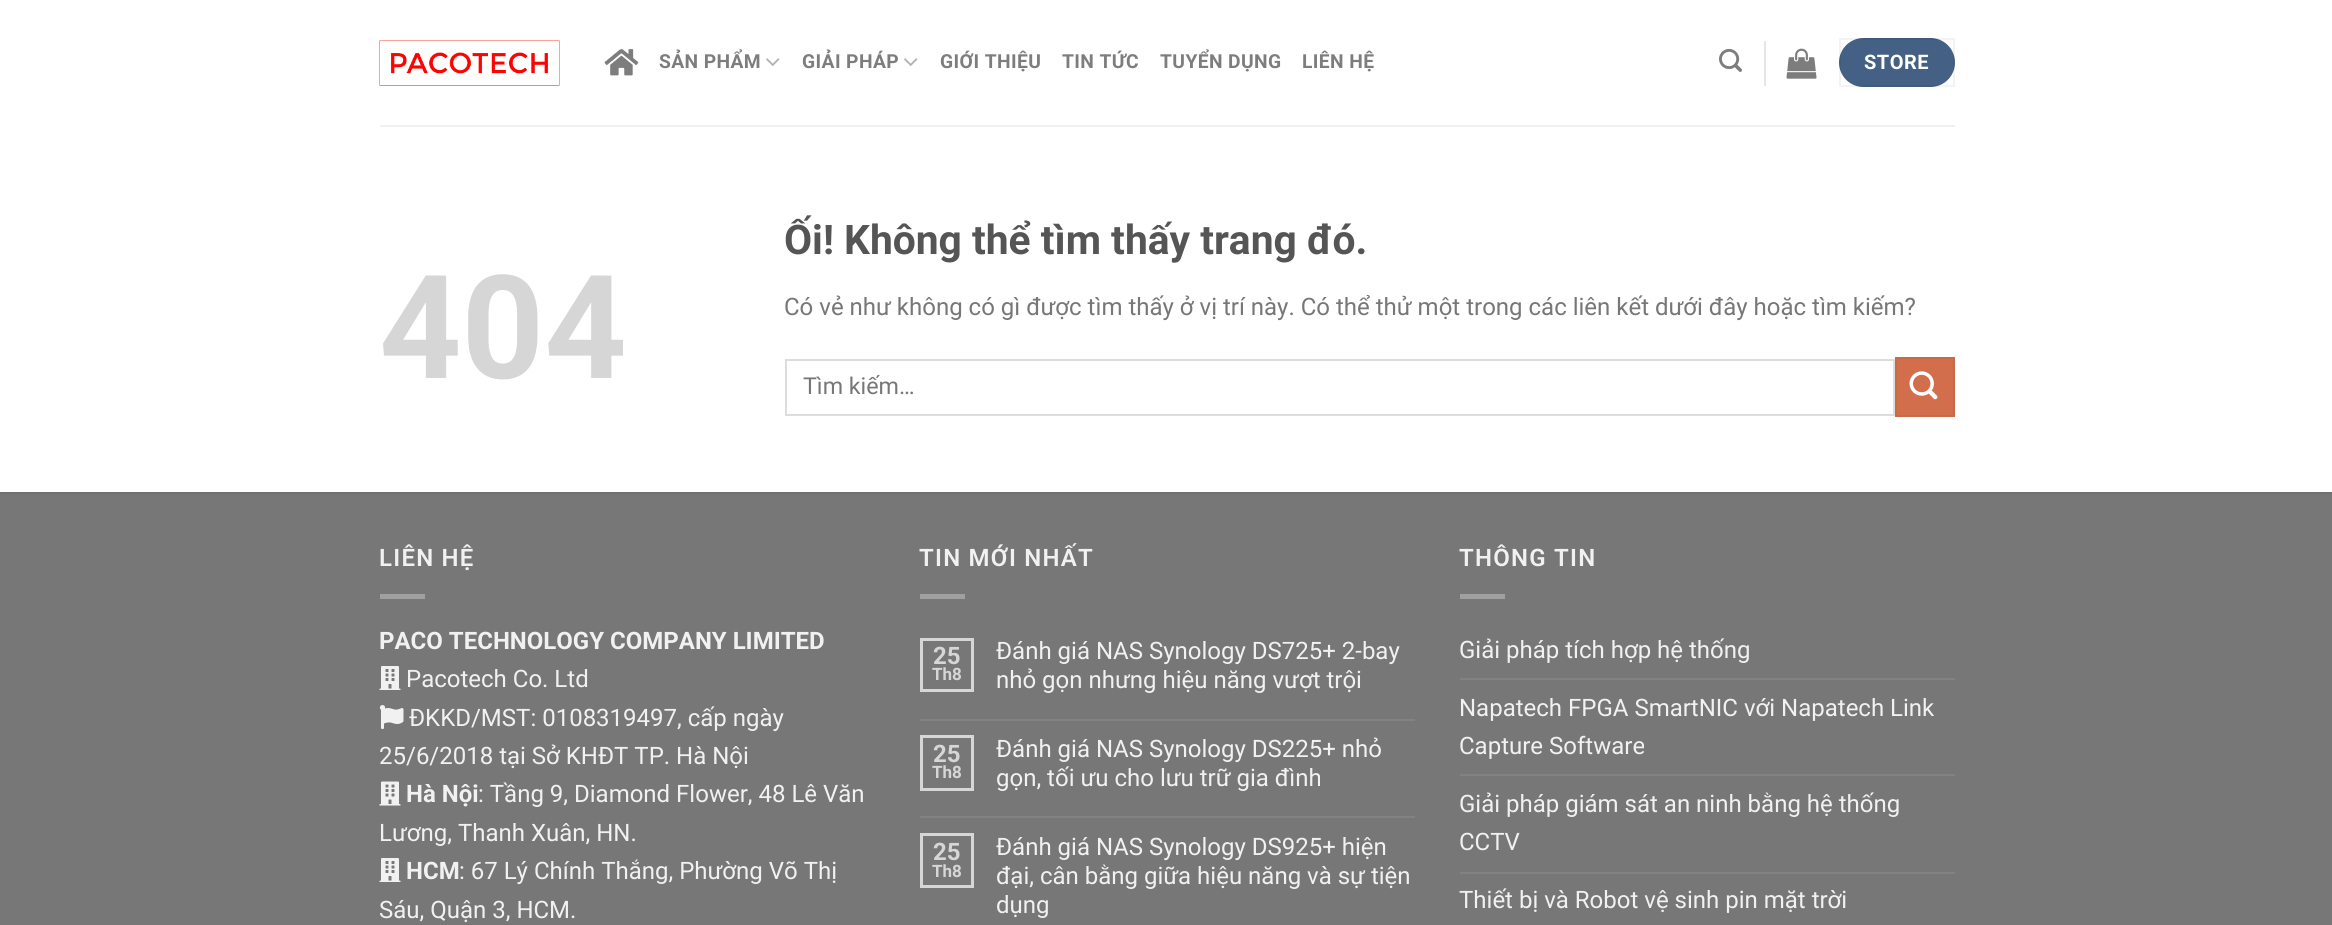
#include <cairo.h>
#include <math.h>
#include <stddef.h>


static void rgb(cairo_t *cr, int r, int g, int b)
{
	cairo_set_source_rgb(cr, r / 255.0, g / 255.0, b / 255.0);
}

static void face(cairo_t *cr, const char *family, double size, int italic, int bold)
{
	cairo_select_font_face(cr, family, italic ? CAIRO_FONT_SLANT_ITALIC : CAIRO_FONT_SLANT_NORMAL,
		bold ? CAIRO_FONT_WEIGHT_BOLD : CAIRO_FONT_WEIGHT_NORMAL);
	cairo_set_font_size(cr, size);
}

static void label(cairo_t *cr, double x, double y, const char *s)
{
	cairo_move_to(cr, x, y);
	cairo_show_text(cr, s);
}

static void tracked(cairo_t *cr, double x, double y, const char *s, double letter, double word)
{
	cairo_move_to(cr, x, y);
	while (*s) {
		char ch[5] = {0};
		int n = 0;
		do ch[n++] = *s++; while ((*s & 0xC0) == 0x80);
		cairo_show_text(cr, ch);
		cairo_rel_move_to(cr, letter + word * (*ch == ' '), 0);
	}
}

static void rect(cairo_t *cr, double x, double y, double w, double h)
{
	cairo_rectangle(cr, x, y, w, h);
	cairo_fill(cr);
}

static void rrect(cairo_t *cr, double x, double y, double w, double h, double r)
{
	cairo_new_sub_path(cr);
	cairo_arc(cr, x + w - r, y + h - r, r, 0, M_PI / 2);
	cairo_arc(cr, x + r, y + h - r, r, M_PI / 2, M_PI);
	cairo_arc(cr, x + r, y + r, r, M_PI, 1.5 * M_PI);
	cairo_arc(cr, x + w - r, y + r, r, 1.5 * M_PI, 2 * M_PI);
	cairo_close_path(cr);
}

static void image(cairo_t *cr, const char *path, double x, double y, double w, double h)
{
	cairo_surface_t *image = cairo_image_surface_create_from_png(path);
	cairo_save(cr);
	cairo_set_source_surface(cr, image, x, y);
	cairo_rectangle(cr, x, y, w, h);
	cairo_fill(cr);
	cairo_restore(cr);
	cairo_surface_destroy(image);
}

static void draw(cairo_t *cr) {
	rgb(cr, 255, 255, 255);
	cairo_paint(cr);
	image(cr, "image0.png", 379, 40, 181, 46);
	image(cr, "image1.png", 604, 49, 35, 27);
	face(cr, "Roboto", 19.25, 0, 1);
	rgb(cr, 125, 125, 125);
	tracked(cr, 659, 68, "SẢN PHẨM", 0.4, 0);
	image(cr, "image2.png", 766, 58, 14, 8);
	tracked(cr, 802, 68, "GIẢI PHÁP", 0.4, 0);
	image(cr, "image2.png", 904, 58, 14, 8);
	tracked(cr, 940, 68, "GIỚI THIỆU", 0.4, 0);
	tracked(cr, 1062, 68, "TIN TỨC", 0.4, 0);
	tracked(cr, 1160, 68, "TUYỂN DỤNG", 0.4, 0);
	tracked(cr, 1302, 68, "LIÊN HỆ", 0.4, 0);
	image(cr, "image3.png", 1719, 48, 23, 24);
	rgb(cr, 230, 230, 230);
	rect(cr, 1764, 41, 2, 45);
	image(cr, "image4.png", 1786, 48, 31, 31);
	rgb(cr, 68, 96, 132);
	rrect(cr, 1839, 38, 116, 49, 24.5);
	cairo_fill(cr);
	cairo_rectangle(cr, 1840, 39, 114, 47);
	cairo_set_source_rgba(cr, 0, 0, 0, 0.05);
	cairo_stroke(cr);
	face(cr, "Roboto", 20, 0, 1);
	rgb(cr, 255, 255, 255);
	tracked(cr, 1864, 69, "STORE", 0.5, 0);
	rgb(cr, 241, 241, 241);
	rect(cr, 380, 125, 1575, 2);
	face(cr, "Roboto", 144, 0, 1);
	rgb(cr, 214, 214, 214);
	label(cr, 379, 378, "404");
	face(cr, "Roboto", 40.75, 0, 1);
	rgb(cr, 85, 85, 85);
	label(cr, 784, 254, "Ối! Không thể tìm thấy trang đó.");
	face(cr, "Roboto", 24, 0, 0);
	rgb(cr, 119, 119, 119);
	label(cr, 784, 315, "Có vẻ như không có gì được tìm thấy ở vị trí này. Có thể thử một trong các liên kết dưới đây hoặc tìm kiếm?");
	cairo_rectangle(cr, 786, 360, 1108, 55);
	rgb(cr, 221, 221, 221);
	cairo_stroke(cr);
	face(cr, "Roboto", 23.25, 0, 0);
	rgb(cr, 119, 119, 119);
	label(cr, 803, 394, "Tìm kiếm…");
	rgb(cr, 210, 110, 75);
	cairo_rectangle(cr, 1896, 358, 58, 58);
	cairo_fill_preserve(cr);
	rgb(cr, 200, 105, 71);
	cairo_stroke(cr);
	image(cr, "image5.png", 1909, 371, 29, 29);
	rgb(cr, 119, 119, 119);
	rect(cr, 0, 494, 2332, 431);
	rgb(cr, 113, 113, 113);
	rect(cr, 0, 492, 2332, 2);
	face(cr, "Roboto SemiBold", 24, 0, 0);
	rgb(cr, 241, 241, 241);
	tracked(cr, 379, 566, "LIÊN HỆ", 1.25, 0);
	rgb(cr, 160, 160, 160);
	rect(cr, 380, 594, 45, 5);
	face(cr, "Roboto", 24, 0, 1);
	rgb(cr, 241, 241, 241);
	label(cr, 379, 649, "PACO TECHNOLOGY COMPANY LIMITED");
	image(cr, "image6.png", 379, 666, 22, 24);
	face(cr, "Roboto", 24, 0, 0);
	label(cr, 406, 687, "Pacotech Co. Ltd");
	image(cr, "image7.png", 379, 705, 25, 24);
	label(cr, 409, 726, "ĐKKD/MST: 0108319497, cấp ngày");
	label(cr, 379, 764, "25/6/2018 tại Sở KHĐT TP. Hà Nội");
	image(cr, "image8.png", 379, 781, 22, 25);
	face(cr, "Roboto", 24, 0, 1);
	label(cr, 406, 802, "Hà Nội");
	face(cr, "Roboto", 24, 0, 0);
	label(cr, 478, 802, ": Tầng 9, Diamond Flower, 48 Lê Văn");
	label(cr, 379, 841, "Lương, Thanh Xuân, HN.");
	image(cr, "image6.png", 379, 858, 22, 24);
	face(cr, "Roboto", 24, 0, 1);
	label(cr, 406, 879, "HCM");
	face(cr, "Roboto", 24, 0, 0);
	label(cr, 459, 879, ": 67 Lý Chính Thắng, Phường Võ Thị");
	label(cr, 379, 918, "Sáu, Quận 3, HCM.");
	face(cr, "Roboto SemiBold", 24, 0, 0);
	tracked(cr, 919, 566, "TIN MỚI NHẤT", 1.25, 0);
	rgb(cr, 160, 160, 160);
	rect(cr, 920, 594, 45, 5);
	cairo_rectangle(cr, 921.5, 639.5, 51, 51);
	rgb(cr, 214, 214, 214);
	cairo_set_line_width(cr, 3);
	cairo_stroke(cr);
	face(cr, "Roboto", 24, 0, 1);
	label(cr, 933, 664, "25");
	face(cr, "Roboto", 17, 0, 1);
	label(cr, 932, 680, "Th8");
	face(cr, "Roboto", 24, 0, 0);
	rgb(cr, 241, 241, 241);
	label(cr, 996, 659, "Đánh giá NAS Synology DS725+ 2-bay");
	label(cr, 996, 688, "nhỏ gọn nhưng hiệu năng vượt trội");
	rgb(cr, 130, 130, 130);
	rect(cr, 920, 719, 495, 2);
	cairo_rectangle(cr, 921.5, 736.5, 51, 53);
	rgb(cr, 214, 214, 214);
	cairo_stroke(cr);
	face(cr, "Roboto", 24, 0, 1);
	label(cr, 933, 762, "25");
	face(cr, "Roboto", 17, 0, 1);
	label(cr, 932, 778, "Th8");
	face(cr, "Roboto", 24, 0, 0);
	rgb(cr, 241, 241, 241);
	label(cr, 996, 757, "Đánh giá NAS Synology DS225+ nhỏ");
	label(cr, 996, 786, "gọn, tối ưu cho lưu trữ gia đình");
	rgb(cr, 130, 130, 130);
	rect(cr, 920, 816, 495, 2);
	cairo_rectangle(cr, 921.5, 834.5, 51, 52);
	rgb(cr, 214, 214, 214);
	cairo_stroke(cr);
	face(cr, "Roboto", 24, 0, 1);
	label(cr, 933, 860, "25");
	face(cr, "Roboto", 17, 0, 1);
	label(cr, 932, 877, "Th8");
	face(cr, "Roboto", 24, 0, 0);
	rgb(cr, 241, 241, 241);
	label(cr, 996, 855, "Đánh giá NAS Synology DS925+ hiện");
	label(cr, 996, 884, "đại, cân bằng giữa hiệu năng và sự tiện");
	label(cr, 996, 913, "dụng");
	face(cr, "Roboto SemiBold", 24, 0, 0);
	tracked(cr, 1459, 566, "THÔNG TIN", 1.25, 0);
	rgb(cr, 160, 160, 160);
	rect(cr, 1460, 594, 45, 5);
	face(cr, "Roboto", 24, 0, 0);
	rgb(cr, 241, 241, 241);
	label(cr, 1459, 658, "Giải pháp tích hợp hệ thống");
	rgb(cr, 130, 130, 130);
	rect(cr, 1460, 678, 495, 2);
	rgb(cr, 241, 241, 241);
	label(cr, 1459, 716, "Napatech FPGA SmartNIC với Napatech Link");
	label(cr, 1459, 754, "Capture Software");
	rgb(cr, 130, 130, 130);
	rect(cr, 1460, 774, 495, 2);
	rgb(cr, 241, 241, 241);
	label(cr, 1459, 812, "Giải pháp giám sát an ninh bằng hệ thống");
	label(cr, 1459, 850, "CCTV");
	rgb(cr, 130, 130, 130);
	rect(cr, 1460, 872, 495, 2);
	rgb(cr, 241, 241, 241);
	label(cr, 1459, 908, "Thiết bị và Robot vệ sinh pin mặt trời");
}

int main(void) {
	cairo_surface_t *surface = cairo_image_surface_create(CAIRO_FORMAT_RGB24, 2332, 925);
	cairo_t *cr = cairo_create(surface);
	cairo_font_options_t *options = cairo_font_options_create();
	cairo_font_options_set_hint_metrics(options, CAIRO_HINT_METRICS_OFF);
	cairo_font_options_set_hint_style(options, CAIRO_HINT_STYLE_NONE);
	cairo_set_font_options(cr, options);
	cairo_set_miter_limit(cr, 4);
	draw(cr);
	cairo_surface_write_to_png(surface, "render.png");
	cairo_font_options_destroy(options);
	cairo_destroy(cr);
	cairo_surface_destroy(surface);
	return 0;
}
